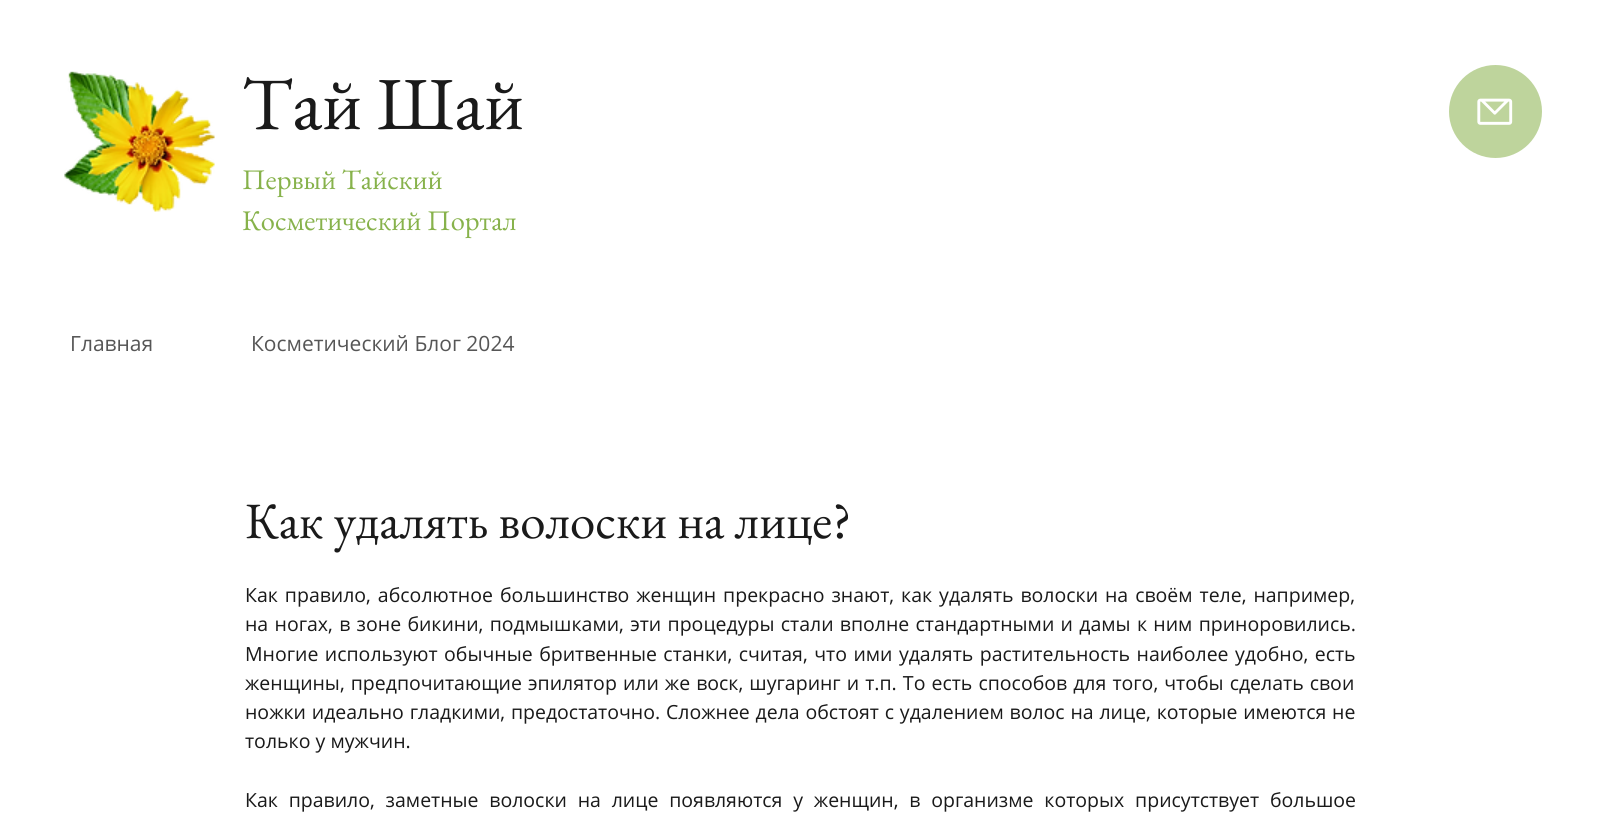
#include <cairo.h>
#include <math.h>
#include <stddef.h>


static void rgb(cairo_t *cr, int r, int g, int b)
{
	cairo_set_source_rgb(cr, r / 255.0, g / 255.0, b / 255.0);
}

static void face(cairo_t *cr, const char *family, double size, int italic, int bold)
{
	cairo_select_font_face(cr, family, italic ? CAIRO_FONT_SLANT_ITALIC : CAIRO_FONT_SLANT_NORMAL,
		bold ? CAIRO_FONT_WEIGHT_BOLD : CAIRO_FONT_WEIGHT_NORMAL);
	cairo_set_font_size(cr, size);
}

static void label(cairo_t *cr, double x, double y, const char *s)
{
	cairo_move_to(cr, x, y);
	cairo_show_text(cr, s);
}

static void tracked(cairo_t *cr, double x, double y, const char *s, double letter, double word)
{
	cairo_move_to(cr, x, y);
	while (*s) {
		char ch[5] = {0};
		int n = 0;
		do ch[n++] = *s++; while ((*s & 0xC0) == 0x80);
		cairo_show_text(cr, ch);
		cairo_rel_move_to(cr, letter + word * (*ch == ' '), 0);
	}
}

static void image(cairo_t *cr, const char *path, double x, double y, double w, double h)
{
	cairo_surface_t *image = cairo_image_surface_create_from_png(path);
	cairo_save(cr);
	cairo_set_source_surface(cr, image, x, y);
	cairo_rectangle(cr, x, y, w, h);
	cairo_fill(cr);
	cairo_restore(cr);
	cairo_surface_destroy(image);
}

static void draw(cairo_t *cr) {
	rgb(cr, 255, 255, 255);
	cairo_paint(cr);
	image(cr, "image0.png", 64, 71, 151, 141);
	face(cr, "EB Garamond", 75, 0, 0);
	rgb(cr, 26, 26, 26);
	label(cr, 242, 129, "Тай Шай");
	face(cr, "EB Garamond", 28.5, 0, 0);
	rgb(cr, 135, 178, 75);
	label(cr, 242, 189, "Первый Тайский");
	label(cr, 242, 230, "Косметический Портал");
	face(cr, "Open Sans", 21, 0, 0);
	rgb(cr, 86, 86, 86);
	label(cr, 70, 351, "Главная");
	label(cr, 251, 351, "Косметический Блог 2024");
	rgb(cr, 190, 212, 156);
	cairo_new_path(cr);
	cairo_arc(cr, 1495.5, 111.5, 46.5, 0, 2 * M_PI);
	cairo_fill(cr);
	image(cr, "image1.png", 1477, 98, 36, 27);
	face(cr, "EB Garamond", 51, 0, 0);
	rgb(cr, 26, 26, 26);
	label(cr, 245, 538, "Как удалять волоски на лице?");
	face(cr, "Open Sans", 19.5, 0, 0);
	tracked(cr, 245, 602, "Как правило, абсолютное большинство женщин прекрасно знают, как удалять волоски на своём теле, например,", 0, 1.9);
	tracked(cr, 245, 631, "на ногах, в зоне бикини, подмышками, эти процедуры стали вполне стандартными и дамы к ним приноровились.", 0, 1.25);
	tracked(cr, 245, 661, "Многие используют обычные бритвенные станки, считая, что ими удалять растительность наиболее удобно, есть", 0, 1.4);
	tracked(cr, 245, 690, "женщины, предпочитающие эпилятор или же воск, шугаринг и т.п. То есть способов для того, чтобы сделать свои", 0, 1);
	tracked(cr, 245, 719, "ножки идеально гладкими, предостаточно. Сложнее дела обстоят с удалением волос на лице, которые имеются не", 0, 0.75);
	label(cr, 245, 748, "только у мужчин.");
	tracked(cr, 245, 807, "Как правило, заметные волоски на лице появляются у женщин, в организме которых присутствует большое", 0, 5.75);
}

int main(void) {
	cairo_surface_t *surface = cairo_image_surface_create(CAIRO_FORMAT_RGB24, 1600, 832);
	cairo_t *cr = cairo_create(surface);
	cairo_font_options_t *options = cairo_font_options_create();
	cairo_font_options_set_hint_metrics(options, CAIRO_HINT_METRICS_OFF);
	cairo_font_options_set_hint_style(options, CAIRO_HINT_STYLE_NONE);
	cairo_set_font_options(cr, options);
	cairo_set_miter_limit(cr, 4);
	draw(cr);
	cairo_surface_write_to_png(surface, "render.png");
	cairo_font_options_destroy(options);
	cairo_destroy(cr);
	cairo_surface_destroy(surface);
	return 0;
}
